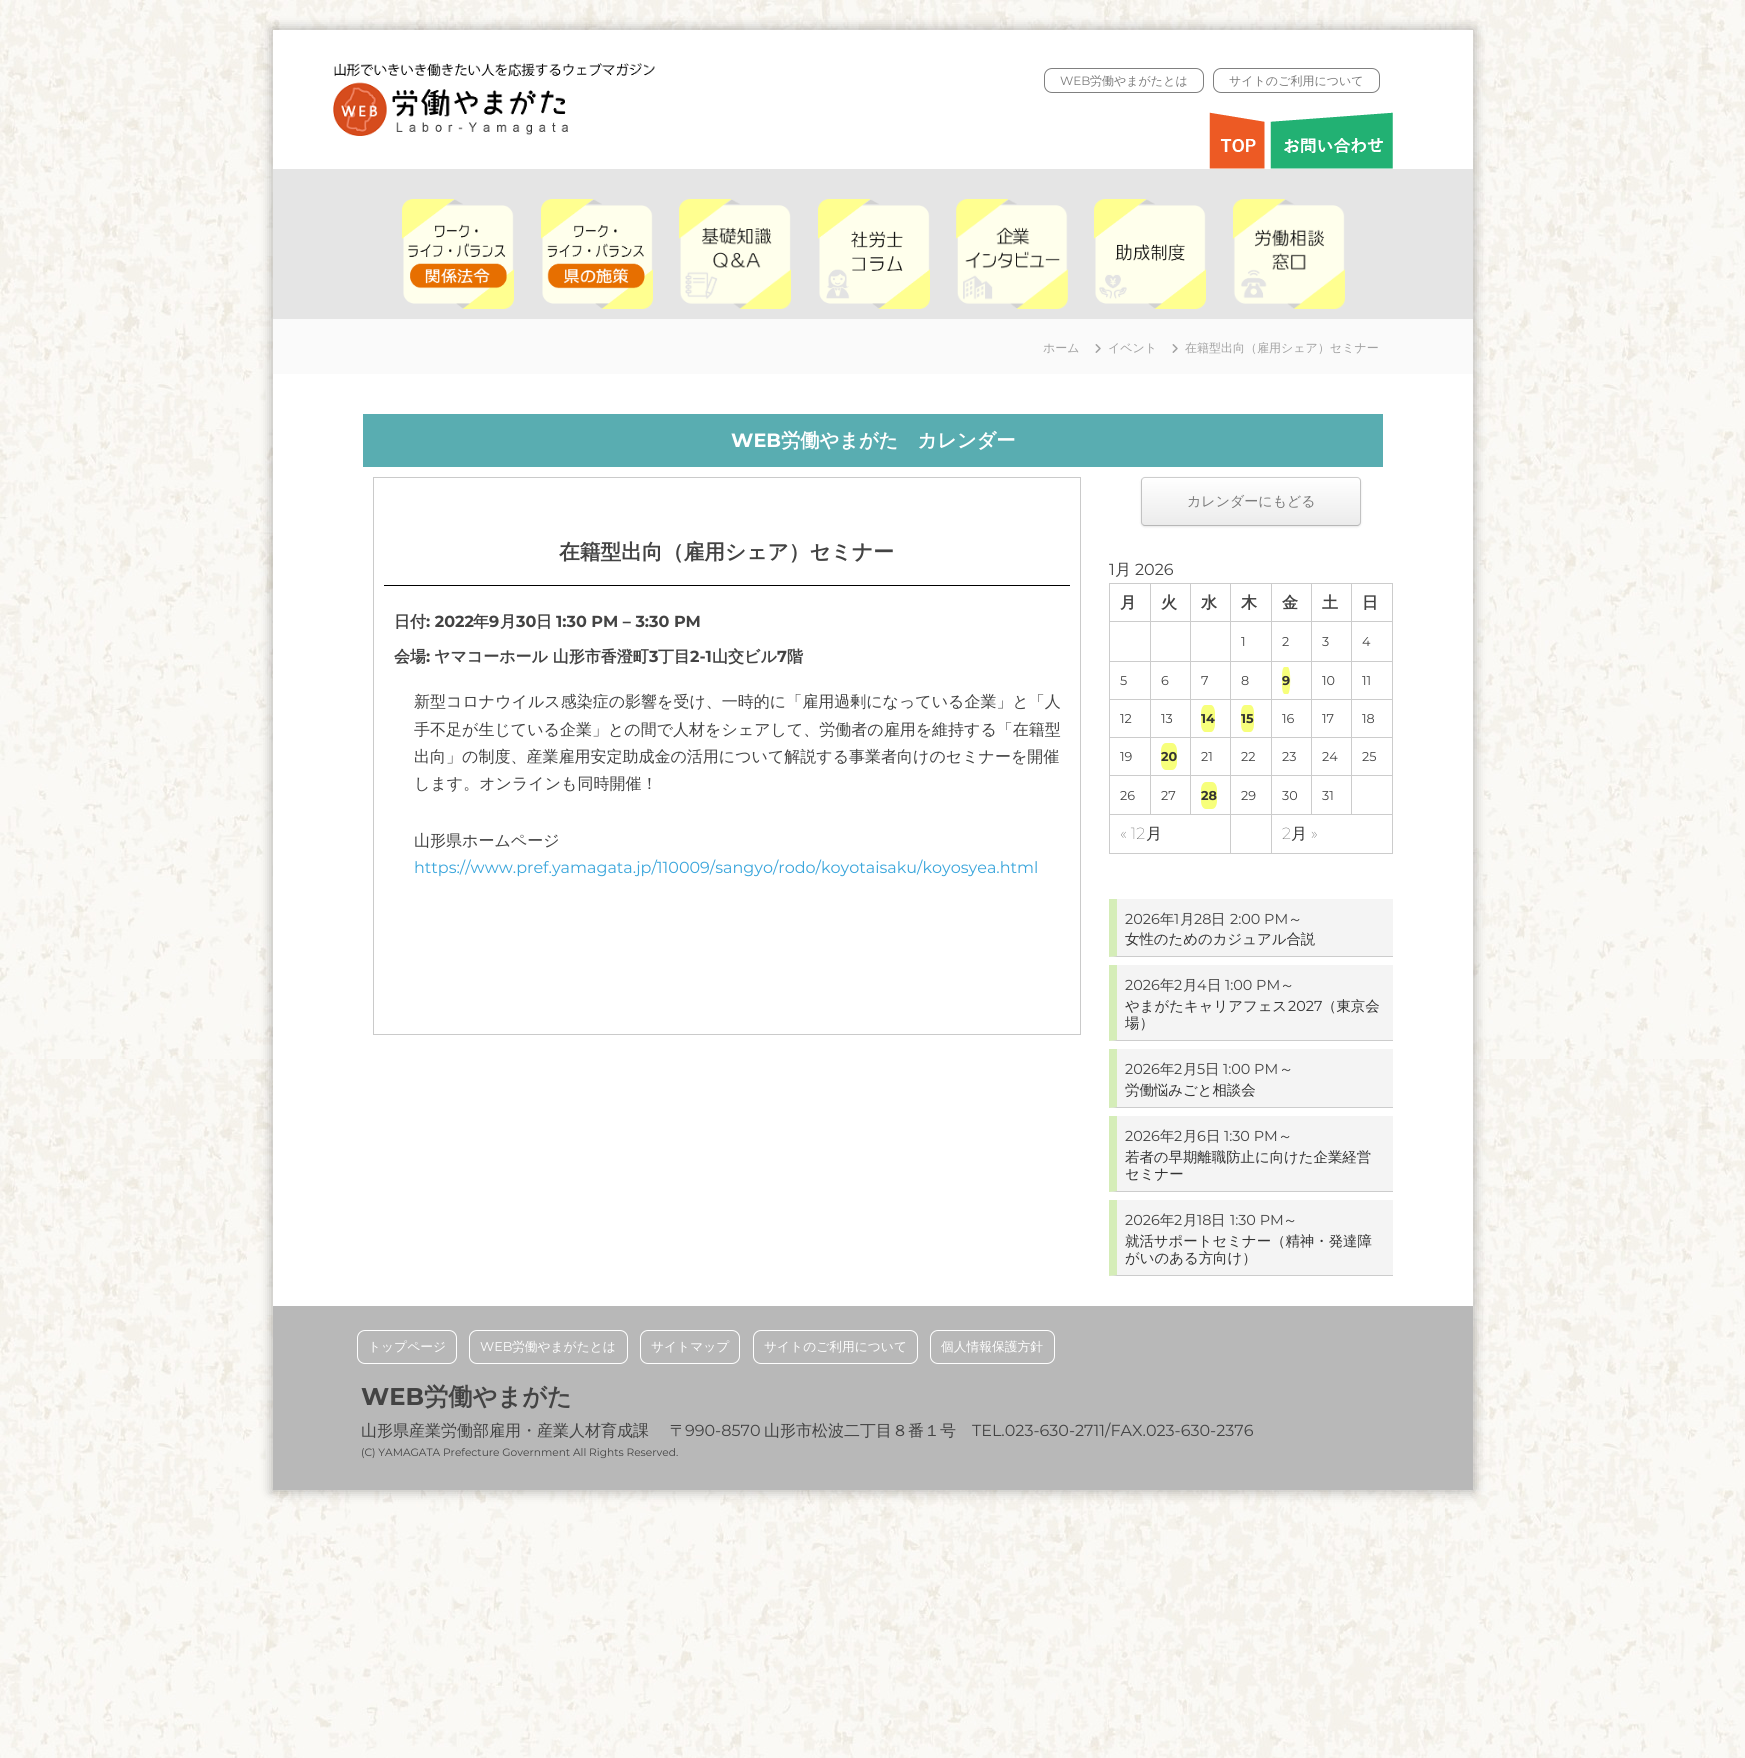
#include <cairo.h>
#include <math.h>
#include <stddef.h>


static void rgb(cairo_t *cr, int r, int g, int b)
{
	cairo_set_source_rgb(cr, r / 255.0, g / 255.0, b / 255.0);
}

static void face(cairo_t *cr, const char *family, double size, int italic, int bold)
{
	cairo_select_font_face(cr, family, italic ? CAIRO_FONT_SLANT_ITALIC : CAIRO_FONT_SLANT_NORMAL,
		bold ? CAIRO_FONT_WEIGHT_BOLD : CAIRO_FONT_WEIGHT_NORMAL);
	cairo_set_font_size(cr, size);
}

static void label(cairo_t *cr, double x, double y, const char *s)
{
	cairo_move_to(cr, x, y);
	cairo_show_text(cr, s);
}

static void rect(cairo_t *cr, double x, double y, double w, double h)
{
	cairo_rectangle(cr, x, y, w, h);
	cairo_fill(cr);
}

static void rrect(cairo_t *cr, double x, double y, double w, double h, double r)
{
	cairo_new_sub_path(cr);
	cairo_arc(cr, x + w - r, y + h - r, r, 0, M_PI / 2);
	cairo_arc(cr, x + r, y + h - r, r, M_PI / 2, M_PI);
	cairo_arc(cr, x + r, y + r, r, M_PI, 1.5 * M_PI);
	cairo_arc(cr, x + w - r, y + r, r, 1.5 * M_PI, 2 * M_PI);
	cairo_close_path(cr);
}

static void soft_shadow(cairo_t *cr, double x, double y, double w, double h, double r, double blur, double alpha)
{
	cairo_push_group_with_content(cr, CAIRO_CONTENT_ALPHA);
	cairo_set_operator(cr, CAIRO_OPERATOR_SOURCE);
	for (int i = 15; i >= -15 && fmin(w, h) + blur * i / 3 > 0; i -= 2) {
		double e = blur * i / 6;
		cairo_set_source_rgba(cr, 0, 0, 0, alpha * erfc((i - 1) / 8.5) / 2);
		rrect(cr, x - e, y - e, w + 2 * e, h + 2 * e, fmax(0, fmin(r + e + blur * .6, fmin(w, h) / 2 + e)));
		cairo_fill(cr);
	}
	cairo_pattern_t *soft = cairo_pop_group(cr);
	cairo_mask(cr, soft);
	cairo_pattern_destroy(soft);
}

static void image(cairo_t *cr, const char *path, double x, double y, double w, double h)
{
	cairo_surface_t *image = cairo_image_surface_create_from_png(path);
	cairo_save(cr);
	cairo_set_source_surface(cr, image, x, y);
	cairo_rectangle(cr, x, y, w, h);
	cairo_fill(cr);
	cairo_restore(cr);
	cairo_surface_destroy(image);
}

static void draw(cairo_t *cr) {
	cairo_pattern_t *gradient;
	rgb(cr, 255, 255, 255);
	cairo_paint(cr);
	image(cr, "image0.png", 0, 0, 1745, 1758);
	rgb(cr, 0, 0, 0);
	soft_shadow(cr, 272, 29, 1202, 1462, 0, 6, 0.3);
	rgb(cr, 255, 255, 255);
	rect(cr, 273, 30, 1200, 1276);
	image(cr, "image1.png", 333, 63, 322, 73);
	rrect(cr, 1044.5, 68.5, 159, 24, 7.5);
	rgb(cr, 128, 128, 128);
	cairo_set_line_width(cr, 1);
	cairo_stroke(cr);
	face(cr, "Montserrat", 12, 0, 0);
	rgb(cr, 123, 123, 123);
	label(cr, 1060, 85, "WEB");
	face(cr, "WenQuanYi Zen Hei Medium", 12, 0, 0);
	label(cr, 1090, 85, "労働やまがたとは");
	rrect(cr, 1213.5, 68.5, 166, 24, 7.5);
	rgb(cr, 128, 128, 128);
	cairo_stroke(cr);
	rgb(cr, 123, 123, 123);
	label(cr, 1229, 85, "サイトのご利用について");
	image(cr, "image2.png", 1209, 112, 56, 57);
	image(cr, "image3.png", 1270, 112, 123, 57);
	rgb(cr, 229, 229, 229);
	rect(cr, 273, 169, 1200, 150);
	image(cr, "image4.png", 402, 199, 112, 110);
	image(cr, "image5.png", 541, 199, 112, 110);
	image(cr, "image6.png", 679, 199, 112, 110);
	image(cr, "image7.png", 818, 199, 112, 110);
	image(cr, "image8.png", 956, 199, 112, 110);
	image(cr, "image9.png", 1094, 199, 112, 110);
	image(cr, "image10.png", 1233, 199, 112, 110);
	rgb(cr, 250, 250, 250);
	rect(cr, 273, 319, 1200, 55);
	rgb(cr, 161, 161, 161);
	label(cr, 1043, 352, "ホーム");
	image(cr, "image11.png", 1095, 344, 6, 9);
	label(cr, 1108, 352, "イベント");
	image(cr, "image11.png", 1172, 344, 6, 9);
	label(cr, 1185, 352, "在籍型出向（雇用シェア）セミナー");
	rgb(cr, 89, 173, 177);
	rect(cr, 363, 414, 1020, 53);
	face(cr, "Montserrat", 19.25, 0, 1);
	rgb(cr, 255, 255, 255);
	label(cr, 731, 447, "WEB");
	face(cr, "WenQuanYi Zen Hei", 19.25, 0, 1);
	label(cr, 781, 447, "労働やまがた　カレンダー");
	cairo_rectangle(cr, 373.5, 477.5, 707, 557);
	rgb(cr, 202, 202, 202);
	cairo_stroke(cr);
	rgb(cr, 0, 0, 0);
	rect(cr, 384, 585, 686, 1);
	face(cr, "WenQuanYi Zen Hei", 20.75, 0, 1);
	rgb(cr, 67, 67, 67);
	label(cr, 559, 559, "在籍型出向（雇用シェア）セミナー");
	face(cr, "WenQuanYi Zen Hei", 16, 0, 1);
	label(cr, 394, 627, "日付");
	face(cr, "Montserrat", 16, 0, 1);
	label(cr, 426, 627, ": 2022");
	face(cr, "WenQuanYi Zen Hei", 16, 0, 1);
	label(cr, 473, 627, "年");
	face(cr, "Montserrat", 16, 0, 1);
	label(cr, 489, 627, "9");
	face(cr, "WenQuanYi Zen Hei", 16, 0, 1);
	label(cr, 500, 627, "月");
	face(cr, "Montserrat", 16, 0, 1);
	label(cr, 516, 627, "30");
	face(cr, "WenQuanYi Zen Hei", 16, 0, 1);
	label(cr, 536, 627, "日");
	face(cr, "Montserrat", 16, 0, 1);
	label(cr, 556, 627, "1:30 PM – 3:30 PM");
	face(cr, "WenQuanYi Zen Hei", 16, 0, 1);
	label(cr, 394, 662, "会場");
	face(cr, "Montserrat", 16, 0, 1);
	label(cr, 426, 662, ":");
	face(cr, "WenQuanYi Zen Hei", 16, 0, 1);
	label(cr, 434, 662, "ヤマコーホール 山形市香澄町");
	face(cr, "Montserrat", 16, 0, 1);
	label(cr, 649, 662, "3");
	face(cr, "WenQuanYi Zen Hei", 16, 0, 1);
	label(cr, 658, 662, "丁目");
	face(cr, "Montserrat", 16, 0, 1);
	label(cr, 690, 662, "2-1");
	face(cr, "WenQuanYi Zen Hei", 16, 0, 1);
	label(cr, 712, 662, "山交ビル");
	face(cr, "Montserrat", 16, 0, 1);
	label(cr, 777, 662, "7");
	face(cr, "WenQuanYi Zen Hei", 16, 0, 1);
	label(cr, 787, 662, "階");
	face(cr, "WenQuanYi Zen Hei Medium", 16, 0, 0);
	label(cr, 414, 707, "新型コロナウイルス感染症の影響を受け、一時的に「雇用過剰になっている企業」と「人");
	label(cr, 414, 735, "手不足が生じている企業」との間で人材をシェアして、労働者の雇用を維持する「在籍型");
	label(cr, 414, 762, "出向」の制度、産業雇用安定助成金の活用について解説する事業者向けのセミナーを開催");
	label(cr, 414, 789, "します。オンラインも同時開催！");
	label(cr, 414, 846, "山形県ホームページ");
	face(cr, "Montserrat", 16, 0, 0);
	rgb(cr, 57, 165, 219);
	label(cr, 414, 873, "https://www.pref.yamagata.jp/110009/sangyo/rodo/koyotaisaku/koyosyea.html");
	rgb(cr, 0, 0, 0);
	soft_shadow(cr, 1141, 478, 220, 49, 4, 1, 0.1);
	cairo_save(cr);
	rrect(cr, 1141, 477, 220, 49, 4);
	cairo_clip(cr);
	gradient = cairo_pattern_create_linear(1142, 525, 1142, 478);
	cairo_pattern_add_color_stop_rgba(gradient, 0, 0.922, 0.922, 0.922, 1);
	cairo_pattern_add_color_stop_rgba(gradient, 1, 1, 1, 1, 1);
	cairo_set_source(cr, gradient);
	cairo_pattern_destroy(gradient);
	rect(cr, 1141, 478, 220, 47);
	cairo_restore(cr);
	cairo_new_path(cr);
	cairo_move_to(cr, 1142.5, 478.5);
	cairo_curve_to(cr, 1143, 478, 1144, 477.5, 1145, 477.5);
	cairo_line_to(cr, 1357, 477.5);
	cairo_curve_to(cr, 1358, 477.5, 1359, 478, 1359.5, 478.5);
	rgb(cr, 205, 205, 205);
	cairo_stroke(cr);
	cairo_new_path(cr);
	cairo_move_to(cr, 1359.5, 478.5);
	cairo_curve_to(cr, 1360, 479, 1360.5, 480, 1360.5, 481);
	cairo_line_to(cr, 1360.5, 522);
	cairo_curve_to(cr, 1360.5, 523, 1360, 524, 1359.5, 524.5);
	rgb(cr, 194, 194, 194);
	cairo_stroke(cr);
	cairo_new_path(cr);
	cairo_move_to(cr, 1359.5, 524.5);
	cairo_curve_to(cr, 1359, 525, 1358, 525.5, 1357, 525.5);
	cairo_line_to(cr, 1145, 525.5);
	cairo_curve_to(cr, 1144, 525.5, 1143, 525, 1142.5, 524.5);
	rgb(cr, 183, 183, 183);
	cairo_stroke(cr);
	cairo_new_path(cr);
	cairo_move_to(cr, 1142.5, 524.5);
	cairo_curve_to(cr, 1142, 524, 1141.5, 523, 1141.5, 522);
	cairo_line_to(cr, 1141.5, 481);
	cairo_curve_to(cr, 1141.5, 480, 1142, 479, 1142.5, 478.5);
	rgb(cr, 194, 194, 194);
	cairo_stroke(cr);
	face(cr, "WenQuanYi Zen Hei Medium", 14, 0, 0);
	rgb(cr, 123, 123, 123);
	label(cr, 1187, 506, "カレンダーにもどる");
	face(cr, "Montserrat", 16, 0, 0);
	rgb(cr, 67, 67, 67);
	label(cr, 1109, 575, "1");
	face(cr, "WenQuanYi Zen Hei Medium", 16, 0, 0);
	label(cr, 1115, 575, "月");
	face(cr, "Montserrat", 16, 0, 0);
	label(cr, 1135, 575, "2026");
	rgb(cr, 204, 204, 204);
	rect(cr, 1351, 583, 42, 1);
	rect(cr, 1351, 621, 42, 1);
	rect(cr, 1351, 661, 42, 1);
	rect(cr, 1351, 699, 42, 1);
	rect(cr, 1351, 737, 42, 1);
	rect(cr, 1351, 775, 42, 1);
	rect(cr, 1271, 814, 122, 1);
	rect(cr, 1351, 775, 1, 40);
	rect(cr, 1311, 775, 41, 1);
	rect(cr, 1351, 737, 1, 39);
	rect(cr, 1311, 737, 41, 1);
	rect(cr, 1351, 699, 1, 39);
	rect(cr, 1311, 699, 41, 1);
	rect(cr, 1351, 661, 1, 39);
	rect(cr, 1311, 661, 41, 1);
	rect(cr, 1351, 621, 1, 41);
	rect(cr, 1311, 621, 41, 1);
	rect(cr, 1351, 583, 1, 39);
	rect(cr, 1311, 583, 41, 1);
	rect(cr, 1311, 775, 1, 40);
	rect(cr, 1271, 775, 41, 1);
	rect(cr, 1311, 737, 1, 39);
	rect(cr, 1271, 737, 41, 1);
	rect(cr, 1311, 699, 1, 39);
	rect(cr, 1271, 699, 41, 1);
	rect(cr, 1311, 661, 1, 39);
	rect(cr, 1271, 661, 41, 1);
	rect(cr, 1311, 621, 1, 41);
	rect(cr, 1271, 621, 41, 1);
	rect(cr, 1311, 583, 1, 39);
	rect(cr, 1271, 583, 41, 1);
	rect(cr, 1392, 814, 1, 40);
	rect(cr, 1271, 853, 122, 1);
	rect(cr, 1271, 814, 1, 40);
	rect(cr, 1230, 814, 42, 1);
	rect(cr, 1271, 775, 1, 40);
	rect(cr, 1230, 775, 42, 1);
	rect(cr, 1271, 737, 1, 39);
	rect(cr, 1230, 737, 42, 1);
	rect(cr, 1271, 699, 1, 39);
	rect(cr, 1230, 699, 42, 1);
	rect(cr, 1271, 661, 1, 39);
	rect(cr, 1230, 661, 42, 1);
	rect(cr, 1271, 621, 1, 41);
	rect(cr, 1230, 621, 42, 1);
	rect(cr, 1271, 583, 1, 39);
	rect(cr, 1230, 583, 42, 1);
	rect(cr, 1230, 853, 42, 1);
	rect(cr, 1230, 814, 1, 40);
	rect(cr, 1109, 814, 122, 1);
	rect(cr, 1230, 775, 1, 40);
	rect(cr, 1190, 775, 41, 1);
	rect(cr, 1230, 737, 1, 39);
	rect(cr, 1190, 737, 41, 1);
	rect(cr, 1230, 699, 1, 39);
	rect(cr, 1190, 699, 41, 1);
	rect(cr, 1230, 661, 1, 39);
	rect(cr, 1190, 661, 41, 1);
	rect(cr, 1230, 621, 1, 41);
	rect(cr, 1190, 621, 41, 1);
	rect(cr, 1230, 583, 1, 39);
	rect(cr, 1190, 583, 41, 1);
	rect(cr, 1190, 775, 1, 40);
	rect(cr, 1150, 775, 41, 1);
	rect(cr, 1190, 737, 1, 39);
	rect(cr, 1150, 737, 41, 1);
	rect(cr, 1190, 699, 1, 39);
	rect(cr, 1150, 699, 41, 1);
	rect(cr, 1190, 661, 1, 39);
	rect(cr, 1150, 661, 41, 1);
	rect(cr, 1190, 621, 1, 41);
	rect(cr, 1150, 621, 41, 1);
	rect(cr, 1190, 583, 1, 39);
	rect(cr, 1150, 583, 41, 1);
	rect(cr, 1150, 775, 1, 40);
	rect(cr, 1109, 775, 42, 1);
	rect(cr, 1150, 737, 1, 39);
	rect(cr, 1109, 737, 42, 1);
	rect(cr, 1150, 699, 1, 39);
	rect(cr, 1109, 699, 42, 1);
	rect(cr, 1150, 661, 1, 39);
	rect(cr, 1109, 661, 42, 1);
	rect(cr, 1150, 621, 1, 41);
	rect(cr, 1109, 621, 42, 1);
	rect(cr, 1150, 583, 1, 39);
	rect(cr, 1109, 583, 42, 1);
	rect(cr, 1109, 853, 122, 1);
	rect(cr, 1109, 814, 1, 40);
	rect(cr, 1109, 775, 1, 40);
	rect(cr, 1109, 737, 1, 39);
	rect(cr, 1109, 699, 1, 39);
	rect(cr, 1109, 661, 1, 39);
	rect(cr, 1109, 621, 1, 41);
	rect(cr, 1109, 583, 1, 39);
	face(cr, "WenQuanYi Zen Hei", 16, 0, 1);
	rgb(cr, 67, 67, 67);
	label(cr, 1120, 608, "月");
	label(cr, 1161, 608, "火");
	label(cr, 1201, 608, "水");
	label(cr, 1241, 608, "木");
	label(cr, 1282, 608, "金");
	label(cr, 1322, 608, "土");
	rgb(cr, 204, 204, 204);
	rect(cr, 1392, 775, 1, 40);
	rect(cr, 1392, 737, 1, 39);
	rect(cr, 1392, 699, 1, 39);
	rect(cr, 1392, 661, 1, 39);
	rect(cr, 1392, 621, 1, 41);
	rect(cr, 1392, 583, 1, 39);
	rgb(cr, 67, 67, 67);
	label(cr, 1362, 608, "日");
	face(cr, "Montserrat", 12.75, 0, 0);
	label(cr, 1241, 646, "1");
	label(cr, 1282, 646, "2");
	label(cr, 1322, 646, "3");
	label(cr, 1362, 646, "4");
	label(cr, 1120, 685, "5");
	label(cr, 1161, 685, "6");
	label(cr, 1201, 685, "7");
	label(cr, 1241, 685, "8");
	rgb(cr, 247, 255, 123);
	cairo_new_path(cr);
	cairo_move_to(cr, 1284.5, 667);
	cairo_line_to(cr, 1288, 667);
	cairo_curve_to(cr, 1291, 669, 1291, 692, 1288, 694);
	cairo_line_to(cr, 1284.5, 694);
	cairo_curve_to(cr, 1281.5, 693.5, 1282, 682.5, 1282, 680.5);
	cairo_curve_to(cr, 1282, 679, 1281.5, 667, 1284.5, 667);
	cairo_close_path(cr);
	cairo_fill(cr);
	face(cr, "Montserrat", 12.75, 0, 1);
	rgb(cr, 51, 51, 51);
	label(cr, 1282, 685, "9");
	face(cr, "Montserrat", 12.75, 0, 0);
	rgb(cr, 67, 67, 67);
	label(cr, 1322, 685, "10");
	label(cr, 1362, 685, "11");
	label(cr, 1120, 723, "12");
	label(cr, 1161, 723, "13");
	rgb(cr, 247, 255, 123);
	cairo_new_path(cr);
	cairo_move_to(cr, 1205, 705);
	cairo_line_to(cr, 1211, 705);
	cairo_curve_to(cr, 1213, 705, 1215, 708.5, 1215, 713);
	cairo_line_to(cr, 1215, 724);
	cairo_curve_to(cr, 1215, 728.5, 1213, 732, 1211, 732);
	cairo_line_to(cr, 1205, 732);
	cairo_curve_to(cr, 1203, 732, 1201, 728.5, 1201, 724);
	cairo_line_to(cr, 1201, 713);
	cairo_curve_to(cr, 1201, 708.5, 1203, 705, 1205, 705);
	cairo_close_path(cr);
	cairo_fill(cr);
	face(cr, "Montserrat", 12.75, 0, 1);
	rgb(cr, 51, 51, 51);
	label(cr, 1201, 723, "14");
	rgb(cr, 247, 255, 123);
	cairo_new_path(cr);
	cairo_move_to(cr, 1245, 705);
	cairo_line_to(cr, 1250, 705);
	cairo_curve_to(cr, 1252.5, 705, 1254, 708.5, 1254, 713);
	cairo_line_to(cr, 1254, 724);
	cairo_curve_to(cr, 1254, 728.5, 1252.5, 732, 1250, 732);
	cairo_line_to(cr, 1245, 732);
	cairo_curve_to(cr, 1242.5, 732, 1241, 728.5, 1241, 724);
	cairo_line_to(cr, 1241, 713);
	cairo_curve_to(cr, 1241, 708.5, 1242.5, 705, 1245, 705);
	cairo_close_path(cr);
	cairo_fill(cr);
	rgb(cr, 51, 51, 51);
	label(cr, 1241, 723, "15");
	face(cr, "Montserrat", 12.75, 0, 0);
	rgb(cr, 67, 67, 67);
	label(cr, 1282, 723, "16");
	label(cr, 1322, 723, "17");
	label(cr, 1362, 723, "18");
	label(cr, 1120, 761, "19");
	rgb(cr, 247, 255, 123);
	cairo_new_path(cr);
	cairo_move_to(cr, 1166, 743);
	cairo_line_to(cr, 1172, 743);
	cairo_curve_to(cr, 1175, 743, 1177, 746.5, 1177, 751);
	cairo_line_to(cr, 1177, 762);
	cairo_curve_to(cr, 1177, 766.5, 1175, 770, 1172, 770);
	cairo_line_to(cr, 1166, 770);
	cairo_curve_to(cr, 1163, 770, 1161, 766.5, 1161, 762);
	cairo_line_to(cr, 1161, 751);
	cairo_curve_to(cr, 1161, 746.5, 1163, 743, 1166, 743);
	cairo_close_path(cr);
	cairo_fill(cr);
	face(cr, "Montserrat", 12.75, 0, 1);
	rgb(cr, 51, 51, 51);
	label(cr, 1161, 761, "20");
	face(cr, "Montserrat", 12.75, 0, 0);
	rgb(cr, 67, 67, 67);
	label(cr, 1201, 761, "21");
	label(cr, 1241, 761, "22");
	label(cr, 1282, 761, "23");
	label(cr, 1322, 761, "24");
	label(cr, 1362, 761, "25");
	label(cr, 1120, 800, "26");
	label(cr, 1161, 800, "27");
	rgb(cr, 247, 255, 123);
	cairo_new_path(cr);
	cairo_move_to(cr, 1206, 782);
	cairo_line_to(cr, 1212, 782);
	cairo_curve_to(cr, 1215, 782, 1217, 785.5, 1217, 790);
	cairo_line_to(cr, 1217, 801);
	cairo_curve_to(cr, 1217, 805.5, 1215, 809, 1212, 809);
	cairo_line_to(cr, 1206, 809);
	cairo_curve_to(cr, 1203, 809, 1201, 805.5, 1201, 801);
	cairo_line_to(cr, 1201, 790);
	cairo_curve_to(cr, 1201, 785.5, 1203, 782, 1206, 782);
	cairo_close_path(cr);
	cairo_fill(cr);
	face(cr, "Montserrat", 12.75, 0, 1);
	rgb(cr, 51, 51, 51);
	label(cr, 1201, 800, "28");
	face(cr, "Montserrat", 12.75, 0, 0);
	rgb(cr, 67, 67, 67);
	label(cr, 1241, 800, "29");
	label(cr, 1282, 800, "30");
	label(cr, 1322, 800, "31");
	face(cr, "Montserrat Thin", 16, 0, 0);
	rgb(cr, 51, 51, 51);
	label(cr, 1120, 839, "« 12");
	face(cr, "WenQuanYi Zen Hei Medium", 16, 0, 0);
	label(cr, 1146, 839, "月");
	face(cr, "Montserrat Thin", 16, 0, 0);
	label(cr, 1282, 839, "2");
	face(cr, "WenQuanYi Zen Hei Medium", 16, 0, 0);
	label(cr, 1291, 839, "月");
	face(cr, "Montserrat Thin", 16, 0, 0);
	label(cr, 1311, 839, "»");
	rgb(cr, 244, 244, 244);
	rect(cr, 1109, 899, 284, 58);
	rgb(cr, 204, 204, 204);
	cairo_new_path(cr);
	cairo_move_to(cr, 1393, 957);
	cairo_line_to(cr, 1109, 957);
	cairo_line_to(cr, 1117, 956);
	cairo_line_to(cr, 1393, 956);
	cairo_close_path(cr);
	cairo_fill(cr);
	rgb(cr, 213, 237, 184);
	cairo_new_path(cr);
	cairo_move_to(cr, 1109, 957);
	cairo_line_to(cr, 1109, 899);
	cairo_line_to(cr, 1117, 899);
	cairo_line_to(cr, 1117, 956);
	cairo_close_path(cr);
	cairo_fill(cr);
	face(cr, "Montserrat", 14.4, 0, 0);
	rgb(cr, 67, 67, 67);
	label(cr, 1125, 924, "2026");
	face(cr, "WenQuanYi Zen Hei Medium", 14.4, 0, 0);
	label(cr, 1160, 924, "年");
	face(cr, "Montserrat", 14.4, 0, 0);
	label(cr, 1174, 924, "1");
	face(cr, "WenQuanYi Zen Hei Medium", 14.4, 0, 0);
	label(cr, 1180, 924, "月");
	face(cr, "Montserrat", 14.4, 0, 0);
	label(cr, 1194, 924, "28");
	face(cr, "WenQuanYi Zen Hei Medium", 14.4, 0, 0);
	label(cr, 1211, 924, "日");
	face(cr, "Montserrat", 14.4, 0, 0);
	label(cr, 1230, 924, "2:00 PM");
	face(cr, "WenQuanYi Zen Hei Medium", 14.4, 0, 0);
	label(cr, 1288, 924, "～");
	rgb(cr, 51, 51, 51);
	label(cr, 1125, 944, "女性のためのカジュアル合説");
	rgb(cr, 244, 244, 244);
	rect(cr, 1109, 965, 284, 76);
	rgb(cr, 204, 204, 204);
	cairo_new_path(cr);
	cairo_move_to(cr, 1393, 1041);
	cairo_line_to(cr, 1109, 1041);
	cairo_line_to(cr, 1117, 1040);
	cairo_line_to(cr, 1393, 1040);
	cairo_close_path(cr);
	cairo_fill(cr);
	rgb(cr, 213, 237, 184);
	cairo_new_path(cr);
	cairo_move_to(cr, 1109, 1041);
	cairo_line_to(cr, 1109, 965);
	cairo_line_to(cr, 1117, 965);
	cairo_line_to(cr, 1117, 1040);
	cairo_close_path(cr);
	cairo_fill(cr);
	face(cr, "Montserrat", 14.4, 0, 0);
	rgb(cr, 67, 67, 67);
	label(cr, 1125, 990, "2026");
	face(cr, "WenQuanYi Zen Hei Medium", 14.4, 0, 0);
	label(cr, 1160, 990, "年");
	face(cr, "Montserrat", 14.4, 0, 0);
	label(cr, 1174, 990, "2");
	face(cr, "WenQuanYi Zen Hei Medium", 14.4, 0, 0);
	label(cr, 1183, 990, "月");
	face(cr, "Montserrat", 14.4, 0, 0);
	label(cr, 1197, 990, "4");
	face(cr, "WenQuanYi Zen Hei Medium", 14.4, 0, 0);
	label(cr, 1207, 990, "日");
	face(cr, "Montserrat", 14.4, 0, 0);
	label(cr, 1225, 990, "1:00 PM");
	face(cr, "WenQuanYi Zen Hei Medium", 14.4, 0, 0);
	label(cr, 1280, 990, "～");
	rgb(cr, 51, 51, 51);
	label(cr, 1125, 1011, "やまがたキャリアフェス");
	face(cr, "Montserrat", 14.4, 0, 0);
	label(cr, 1288, 1011, "2027");
	face(cr, "WenQuanYi Zen Hei Medium", 14.4, 0, 0);
	label(cr, 1322, 1011, "（東京会");
	label(cr, 1125, 1028, "場）");
	rgb(cr, 244, 244, 244);
	rect(cr, 1109, 1049, 284, 59);
	rgb(cr, 204, 204, 204);
	cairo_new_path(cr);
	cairo_move_to(cr, 1393, 1108);
	cairo_line_to(cr, 1109, 1108);
	cairo_line_to(cr, 1117, 1107);
	cairo_line_to(cr, 1393, 1107);
	cairo_close_path(cr);
	cairo_fill(cr);
	rgb(cr, 213, 237, 184);
	cairo_new_path(cr);
	cairo_move_to(cr, 1109, 1108);
	cairo_line_to(cr, 1109, 1049);
	cairo_line_to(cr, 1117, 1049);
	cairo_line_to(cr, 1117, 1107);
	cairo_close_path(cr);
	cairo_fill(cr);
	face(cr, "Montserrat", 14.4, 0, 0);
	rgb(cr, 67, 67, 67);
	label(cr, 1125, 1074, "2026");
	face(cr, "WenQuanYi Zen Hei Medium", 14.4, 0, 0);
	label(cr, 1160, 1074, "年");
	face(cr, "Montserrat", 14.4, 0, 0);
	label(cr, 1174, 1074, "2");
	face(cr, "WenQuanYi Zen Hei Medium", 14.4, 0, 0);
	label(cr, 1183, 1074, "月");
	face(cr, "Montserrat", 14.4, 0, 0);
	label(cr, 1197, 1074, "5");
	face(cr, "WenQuanYi Zen Hei Medium", 14.4, 0, 0);
	label(cr, 1205, 1074, "日");
	face(cr, "Montserrat", 14.4, 0, 0);
	label(cr, 1223, 1074, "1:00 PM");
	face(cr, "WenQuanYi Zen Hei Medium", 14.4, 0, 0);
	label(cr, 1279, 1074, "～");
	rgb(cr, 51, 51, 51);
	label(cr, 1125, 1095, "労働悩みごと相談会");
	rgb(cr, 244, 244, 244);
	rect(cr, 1109, 1116, 284, 76);
	rgb(cr, 204, 204, 204);
	cairo_new_path(cr);
	cairo_move_to(cr, 1393, 1192);
	cairo_line_to(cr, 1109, 1192);
	cairo_line_to(cr, 1117, 1191);
	cairo_line_to(cr, 1393, 1191);
	cairo_close_path(cr);
	cairo_fill(cr);
	rgb(cr, 213, 237, 184);
	cairo_new_path(cr);
	cairo_move_to(cr, 1109, 1192);
	cairo_line_to(cr, 1109, 1116);
	cairo_line_to(cr, 1117, 1116);
	cairo_line_to(cr, 1117, 1191);
	cairo_close_path(cr);
	cairo_fill(cr);
	face(cr, "Montserrat", 14.4, 0, 0);
	rgb(cr, 67, 67, 67);
	label(cr, 1125, 1141, "2026");
	face(cr, "WenQuanYi Zen Hei Medium", 14.4, 0, 0);
	label(cr, 1160, 1141, "年");
	face(cr, "Montserrat", 14.4, 0, 0);
	label(cr, 1174, 1141, "2");
	face(cr, "WenQuanYi Zen Hei Medium", 14.4, 0, 0);
	label(cr, 1183, 1141, "月");
	face(cr, "Montserrat", 14.4, 0, 0);
	label(cr, 1197, 1141, "6");
	face(cr, "WenQuanYi Zen Hei Medium", 14.4, 0, 0);
	label(cr, 1206, 1141, "日");
	face(cr, "Montserrat", 14.4, 0, 0);
	label(cr, 1224, 1141, "1:30 PM");
	face(cr, "WenQuanYi Zen Hei Medium", 14.4, 0, 0);
	label(cr, 1278, 1141, "～");
	rgb(cr, 51, 51, 51);
	label(cr, 1125, 1162, "若者の早期離職防止に向けた企業経営");
	label(cr, 1125, 1179, "セミナー");
	rgb(cr, 244, 244, 244);
	rect(cr, 1109, 1200, 284, 76);
	rgb(cr, 204, 204, 204);
	cairo_new_path(cr);
	cairo_move_to(cr, 1393, 1276);
	cairo_line_to(cr, 1109, 1276);
	cairo_line_to(cr, 1117, 1275);
	cairo_line_to(cr, 1393, 1275);
	cairo_close_path(cr);
	cairo_fill(cr);
	rgb(cr, 213, 237, 184);
	cairo_new_path(cr);
	cairo_move_to(cr, 1109, 1276);
	cairo_line_to(cr, 1109, 1200);
	cairo_line_to(cr, 1117, 1200);
	cairo_line_to(cr, 1117, 1275);
	cairo_close_path(cr);
	cairo_fill(cr);
	face(cr, "Montserrat", 14.4, 0, 0);
	rgb(cr, 67, 67, 67);
	label(cr, 1125, 1225, "2026");
	face(cr, "WenQuanYi Zen Hei Medium", 14.4, 0, 0);
	label(cr, 1160, 1225, "年");
	face(cr, "Montserrat", 14.4, 0, 0);
	label(cr, 1174, 1225, "2");
	face(cr, "WenQuanYi Zen Hei Medium", 14.4, 0, 0);
	label(cr, 1183, 1225, "月");
	face(cr, "Montserrat", 14.4, 0, 0);
	label(cr, 1197, 1225, "18");
	face(cr, "WenQuanYi Zen Hei Medium", 14.4, 0, 0);
	label(cr, 1211, 1225, "日");
	face(cr, "Montserrat", 14.4, 0, 0);
	label(cr, 1230, 1225, "1:30 PM");
	face(cr, "WenQuanYi Zen Hei Medium", 14.4, 0, 0);
	label(cr, 1283, 1225, "～");
	rgb(cr, 51, 51, 51);
	label(cr, 1125, 1246, "就活サポートセミナー（精神・発達障");
	label(cr, 1125, 1263, "がいのある方向け）");
	rgb(cr, 184, 184, 184);
	rect(cr, 273, 1306, 1200, 184);
	rrect(cr, 357.5, 1330.5, 99, 33, 7.5);
	rgb(cr, 255, 255, 255);
	cairo_stroke(cr);
	face(cr, "WenQuanYi Zen Hei Medium", 12.75, 0, 0);
	label(cr, 368, 1351, "トップページ");
	rrect(cr, 469.5, 1330.5, 158, 33, 7.5);
	cairo_stroke(cr);
	face(cr, "Montserrat", 12.75, 0, 0);
	label(cr, 480, 1351, "WEB");
	face(cr, "WenQuanYi Zen Hei Medium", 12.75, 0, 0);
	label(cr, 512, 1351, "労働やまがたとは");
	rrect(cr, 640.5, 1330.5, 99, 33, 7.5);
	cairo_stroke(cr);
	label(cr, 651, 1351, "サイトマップ");
	rrect(cr, 753.5, 1330.5, 164, 33, 7.5);
	cairo_stroke(cr);
	label(cr, 764, 1351, "サイトのご利用について");
	rrect(cr, 930.5, 1330.5, 124, 33, 7.5);
	cairo_stroke(cr);
	label(cr, 941, 1351, "個人情報保護方針");
	face(cr, "Montserrat", 24.25, 0, 1);
	rgb(cr, 67, 67, 67);
	label(cr, 361, 1405, "WEB");
	face(cr, "WenQuanYi Zen Hei", 24.25, 0, 1);
	label(cr, 424, 1405, "労働やまがた");
	face(cr, "WenQuanYi Zen Hei Medium", 16, 0, 0);
	label(cr, 361, 1436, "山形県産業労働部雇用・産業人材育成課　 〒");
	face(cr, "Montserrat", 16, 0, 0);
	label(cr, 685, 1436, "990-8570");
	face(cr, "WenQuanYi Zen Hei Medium", 16, 0, 0);
	label(cr, 764, 1436, "山形市松波二丁目８番１号");
	face(cr, "Montserrat", 16, 0, 0);
	label(cr, 972, 1436, "TEL.023-630-2711/FAX.023-630-2376");
	face(cr, "Montserrat", 10.65, 0, 0);
	label(cr, 361, 1456, "(C) YAMAGATA Prefecture Government All Rights Reserved.");
}

int main(void) {
	cairo_surface_t *surface = cairo_image_surface_create(CAIRO_FORMAT_RGB24, 1745, 1758);
	cairo_t *cr = cairo_create(surface);
	cairo_font_options_t *options = cairo_font_options_create();
	cairo_font_options_set_hint_metrics(options, CAIRO_HINT_METRICS_OFF);
	cairo_font_options_set_hint_style(options, CAIRO_HINT_STYLE_NONE);
	cairo_set_font_options(cr, options);
	cairo_set_miter_limit(cr, 4);
	draw(cr);
	cairo_surface_write_to_png(surface, "render.png");
	cairo_font_options_destroy(options);
	cairo_destroy(cr);
	cairo_surface_destroy(surface);
	return 0;
}
